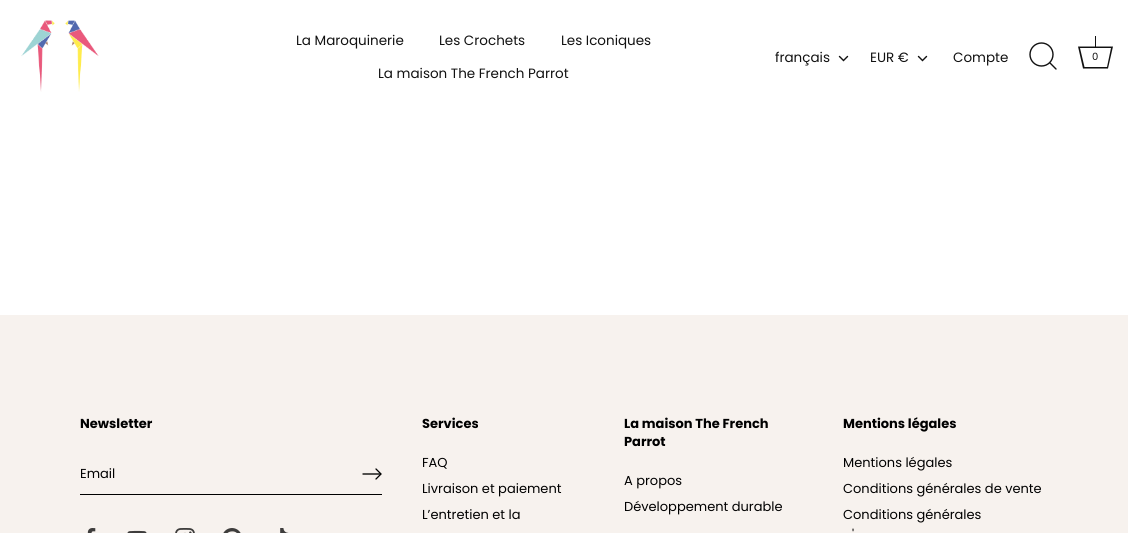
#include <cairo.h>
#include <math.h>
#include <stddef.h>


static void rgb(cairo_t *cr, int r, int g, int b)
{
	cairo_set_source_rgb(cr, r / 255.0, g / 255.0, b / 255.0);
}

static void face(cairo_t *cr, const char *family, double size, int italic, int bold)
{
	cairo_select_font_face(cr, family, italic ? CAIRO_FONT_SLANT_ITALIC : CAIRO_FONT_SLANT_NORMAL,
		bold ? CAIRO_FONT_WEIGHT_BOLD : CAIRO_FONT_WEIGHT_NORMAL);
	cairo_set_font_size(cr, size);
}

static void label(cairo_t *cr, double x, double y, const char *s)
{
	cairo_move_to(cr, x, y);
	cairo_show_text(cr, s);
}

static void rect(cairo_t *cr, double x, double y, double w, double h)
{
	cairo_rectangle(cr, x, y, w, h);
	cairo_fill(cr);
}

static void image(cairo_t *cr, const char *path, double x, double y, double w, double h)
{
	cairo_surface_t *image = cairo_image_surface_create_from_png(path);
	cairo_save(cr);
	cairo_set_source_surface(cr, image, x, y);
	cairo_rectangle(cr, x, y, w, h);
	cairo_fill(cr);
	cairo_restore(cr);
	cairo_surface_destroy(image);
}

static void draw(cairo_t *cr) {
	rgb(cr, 255, 255, 255);
	cairo_paint(cr);
	image(cr, "image0.png", 21, 20, 78, 72);
	face(cr, "Poppins", 13.5, 0, 0);
	rgb(cr, 17, 17, 17);
	label(cr, 296, 45, "La Maroquinerie");
	label(cr, 439, 45, "Les Crochets");
	label(cr, 561, 45, "Les Iconiques");
	label(cr, 378, 78, "La maison The French Parrot");
	label(cr, 775, 62, "français");
	cairo_new_path(cr);
	cairo_move_to(cr, 839.5, 56.5);
	cairo_line_to(cr, 843.5, 60.5);
	cairo_line_to(cr, 847.5, 56.5);
	cairo_set_line_width(cr, 1.4);
	cairo_set_line_cap(cr, CAIRO_LINE_CAP_ROUND);
	cairo_stroke(cr);
	label(cr, 870, 62, "EUR €");
	cairo_new_path(cr);
	cairo_move_to(cr, 918.5, 56.5);
	cairo_line_to(cr, 922.5, 60.5);
	cairo_line_to(cr, 926.5, 56.5);
	cairo_stroke(cr);
	label(cr, 953, 62, "Compte");
	cairo_new_path(cr);
	cairo_arc(cr, 1041.5, 54.5, 11.5, 0, 2 * M_PI);
	cairo_set_line_cap(cr, CAIRO_LINE_CAP_BUTT);
	cairo_stroke(cr);
	cairo_new_path(cr);
	cairo_move_to(cr, 1056, 69);
	cairo_line_to(cr, 1050, 63);
	cairo_set_line_cap(cr, CAIRO_LINE_CAP_ROUND);
	cairo_set_line_join(cr, CAIRO_LINE_JOIN_ROUND);
	cairo_stroke(cr);
	cairo_new_path(cr);
	cairo_move_to(cr, 1111, 48);
	cairo_line_to(cr, 1107, 67);
	cairo_line_to(cr, 1084.5, 67);
	cairo_line_to(cr, 1080, 48);
	cairo_line_to(cr, 1111, 48);
	cairo_move_to(cr, 1113, 46.5);
	cairo_line_to(cr, 1078, 46.5);
	cairo_line_to(cr, 1083, 68.5);
	cairo_line_to(cr, 1108, 68.5);
	cairo_close_path(cr);
	cairo_fill(cr);
	rect(cr, 1095, 36, 1, 11);
	face(cr, "Poppins", 10, 0, 0);
	label(cr, 1092, 60, "0");
	rgb(cr, 247, 242, 238);
	rect(cr, 0, 315, 1128, 218);
	face(cr, "Poppins", 13, 0, 1);
	rgb(cr, 0, 0, 0);
	label(cr, 80, 428, "Newsletter");
	rect(cr, 80, 494, 302, 1);
	face(cr, "Poppins", 13, 0, 0);
	label(cr, 80, 478, "Email");
	cairo_new_path(cr);
	cairo_move_to(cr, 376, 479);
	cairo_line_to(cr, 381, 474);
	cairo_line_to(cr, 376, 469);
	cairo_set_line_width(cr, 1.3);
	cairo_set_line_join(cr, CAIRO_LINE_JOIN_MITER);
	cairo_stroke(cr);
	cairo_new_path(cr);
	cairo_move_to(cr, 380, 474);
	cairo_line_to(cr, 363, 474);
	cairo_set_line_join(cr, CAIRO_LINE_JOIN_ROUND);
	cairo_stroke(cr);
	image(cr, "image1.png", 87, 528, 9, 5);
	image(cr, "image2.png", 127, 530, 20, 3);
	image(cr, "image3.png", 175, 528, 20, 5);
	image(cr, "image4.png", 223, 528, 18, 5);
	image(cr, "image5.png", 280, 528, 9, 5);
	face(cr, "Poppins", 13, 0, 1);
	label(cr, 422, 428, "Services");
	face(cr, "Poppins", 13, 0, 0);
	label(cr, 422, 467, "FAQ");
	label(cr, 422, 493, "Livraison et paiement");
	label(cr, 422, 519, "L’entretien et la");
	face(cr, "Poppins", 13, 0, 1);
	label(cr, 624, 428, "La maison The French");
	label(cr, 624, 446, "Parrot");
	face(cr, "Poppins", 13, 0, 0);
	label(cr, 624, 485, "A propos");
	label(cr, 624, 511, "Développement durable");
	face(cr, "Poppins", 13, 0, 1);
	label(cr, 843, 428, "Mentions légales");
	face(cr, "Poppins", 13, 0, 0);
	label(cr, 843, 467, "Mentions légales");
	label(cr, 843, 493, "Conditions générales de vente");
	label(cr, 843, 519, "Conditions générales");
	label(cr, 852, 539, "'");
}

int main(void) {
	cairo_surface_t *surface = cairo_image_surface_create(CAIRO_FORMAT_RGB24, 1128, 533);
	cairo_t *cr = cairo_create(surface);
	cairo_font_options_t *options = cairo_font_options_create();
	cairo_font_options_set_hint_metrics(options, CAIRO_HINT_METRICS_OFF);
	cairo_font_options_set_hint_style(options, CAIRO_HINT_STYLE_NONE);
	cairo_set_font_options(cr, options);
	cairo_set_miter_limit(cr, 4);
	draw(cr);
	cairo_surface_write_to_png(surface, "render.png");
	cairo_font_options_destroy(options);
	cairo_destroy(cr);
	cairo_surface_destroy(surface);
	return 0;
}
